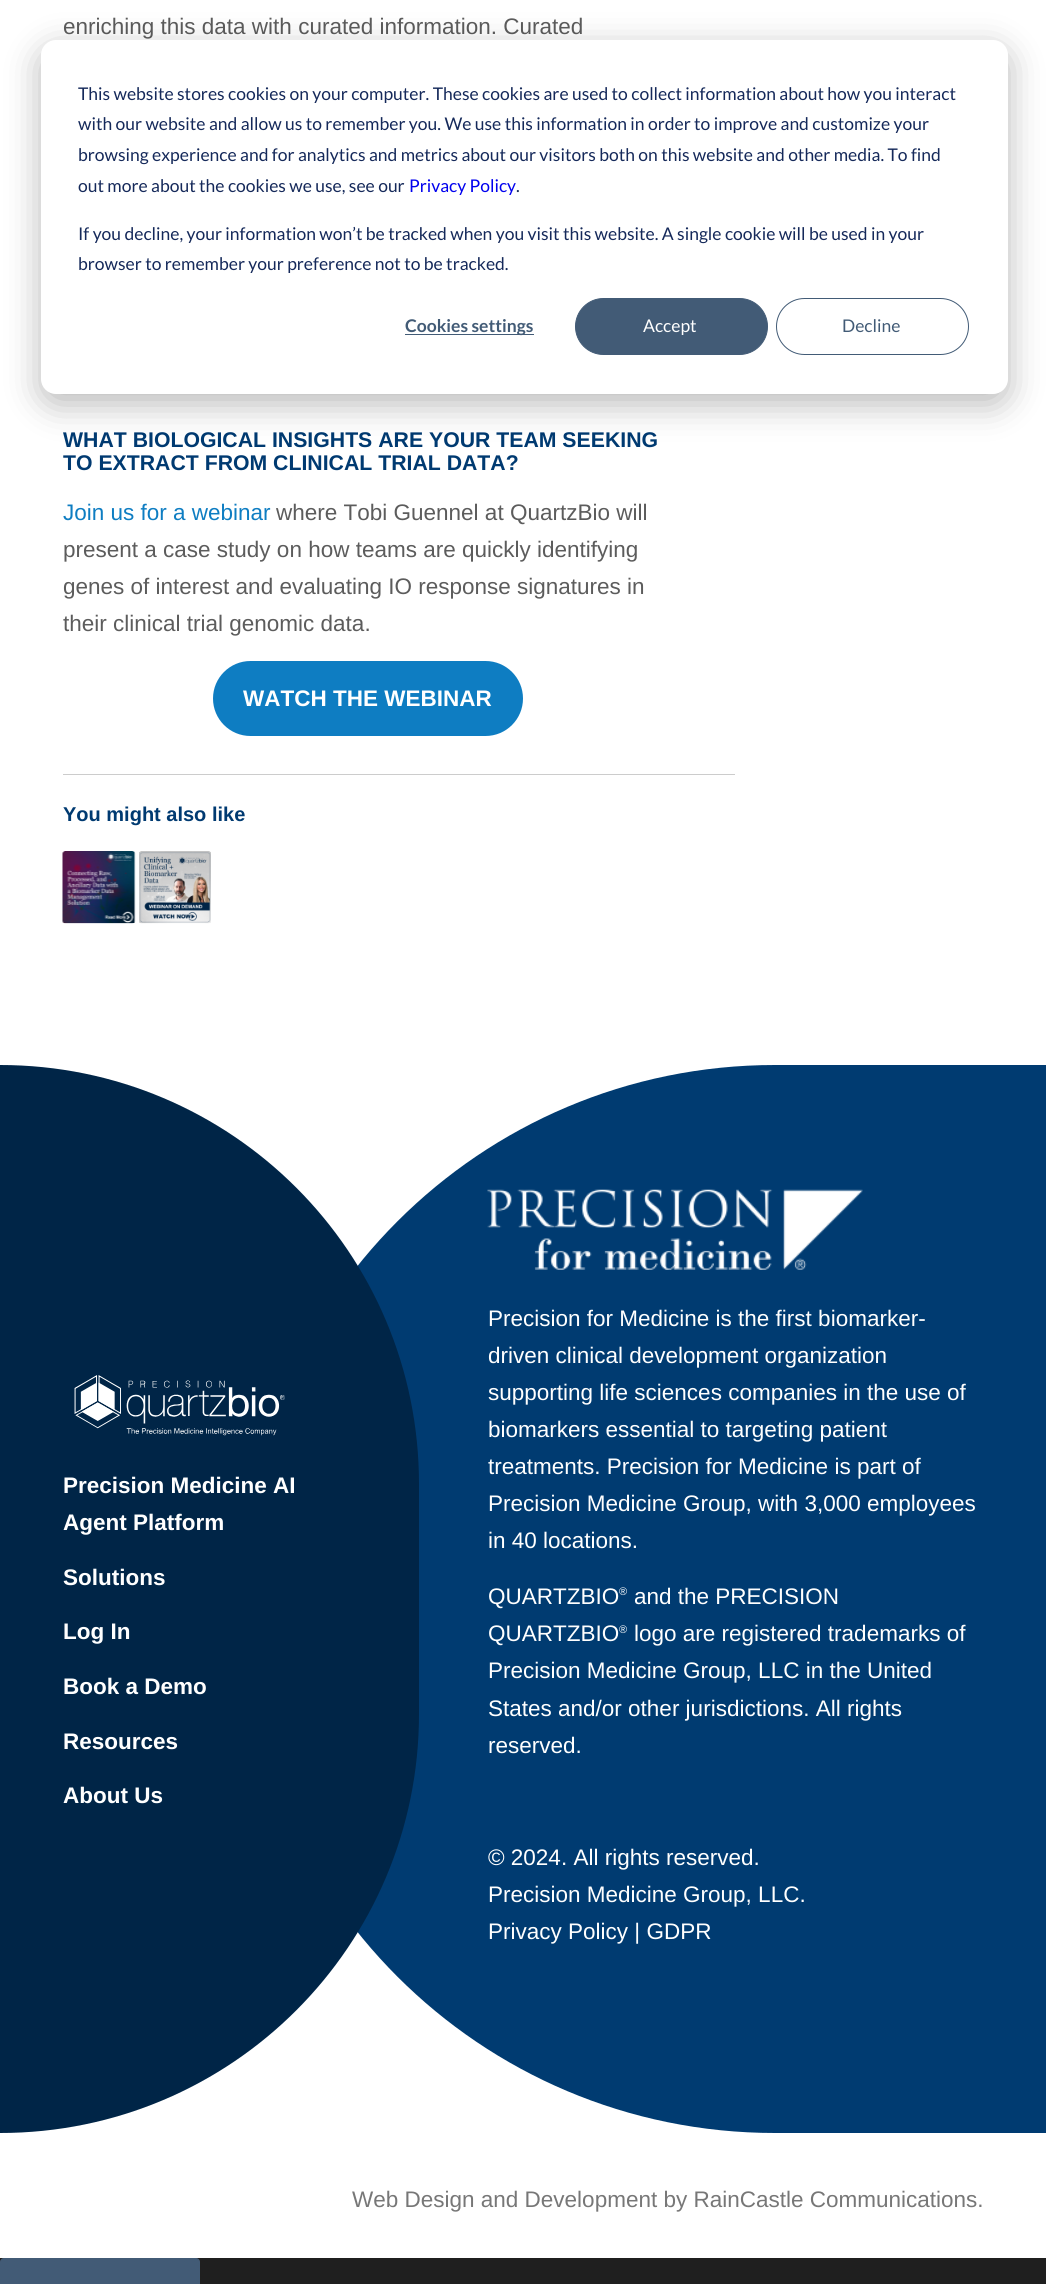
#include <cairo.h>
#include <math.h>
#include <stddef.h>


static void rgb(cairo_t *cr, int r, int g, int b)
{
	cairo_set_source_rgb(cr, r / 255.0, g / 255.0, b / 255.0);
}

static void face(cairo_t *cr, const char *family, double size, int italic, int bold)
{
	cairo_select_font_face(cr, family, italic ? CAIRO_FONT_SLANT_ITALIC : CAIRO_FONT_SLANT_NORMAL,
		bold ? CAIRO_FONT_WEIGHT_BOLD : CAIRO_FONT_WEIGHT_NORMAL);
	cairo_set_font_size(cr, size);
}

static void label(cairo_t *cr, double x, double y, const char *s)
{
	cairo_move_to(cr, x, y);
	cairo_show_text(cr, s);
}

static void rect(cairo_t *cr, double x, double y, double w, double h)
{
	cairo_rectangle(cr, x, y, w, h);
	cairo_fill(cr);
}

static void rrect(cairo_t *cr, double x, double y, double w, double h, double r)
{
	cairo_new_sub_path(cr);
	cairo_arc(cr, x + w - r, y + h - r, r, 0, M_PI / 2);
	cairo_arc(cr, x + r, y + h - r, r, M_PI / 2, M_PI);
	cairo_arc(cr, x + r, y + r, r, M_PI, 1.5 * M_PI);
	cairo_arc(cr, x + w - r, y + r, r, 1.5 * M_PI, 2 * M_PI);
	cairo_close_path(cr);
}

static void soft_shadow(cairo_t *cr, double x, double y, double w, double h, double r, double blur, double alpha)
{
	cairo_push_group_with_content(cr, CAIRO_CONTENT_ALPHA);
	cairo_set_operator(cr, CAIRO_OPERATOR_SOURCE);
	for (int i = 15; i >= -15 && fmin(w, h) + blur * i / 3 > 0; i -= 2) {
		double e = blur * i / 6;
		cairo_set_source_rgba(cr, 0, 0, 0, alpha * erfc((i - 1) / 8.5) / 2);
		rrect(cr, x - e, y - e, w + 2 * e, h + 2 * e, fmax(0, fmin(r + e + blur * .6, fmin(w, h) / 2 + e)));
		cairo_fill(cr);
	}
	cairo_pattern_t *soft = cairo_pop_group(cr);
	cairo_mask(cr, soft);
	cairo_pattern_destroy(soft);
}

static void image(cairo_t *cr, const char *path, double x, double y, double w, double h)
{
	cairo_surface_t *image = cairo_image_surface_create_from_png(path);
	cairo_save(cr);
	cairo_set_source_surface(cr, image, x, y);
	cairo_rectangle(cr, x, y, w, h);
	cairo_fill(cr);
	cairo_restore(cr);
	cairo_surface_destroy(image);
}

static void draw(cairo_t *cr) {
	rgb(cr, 31, 31, 31);
	cairo_paint(cr);
	rgb(cr, 255, 255, 255);
	rect(cr, 0, 0, 1046, 2258);
	face(cr, "Liberation Sans", 22.5, 0, 0);
	rgb(cr, 92, 92, 92);
	label(cr, 63, 34, "enriching this data with curated information. Curated");
	face(cr, "Liberation Sans", 21.25, 0, 1);
	rgb(cr, 0, 58, 113);
	label(cr, 63, 447, "WHAT BIOLOGICAL INSIGHTS ARE YOUR TEAM SEEKING");
	cairo_save(cr);
	cairo_rectangle(cr, 63, 0, 672, 774);
	cairo_clip(cr);
	label(cr, 63, 470, "TO EXTRACT FROM CLINICAL TRIAL DATA?");
	cairo_restore(cr);
	face(cr, "Liberation Sans", 22.5, 0, 0);
	rgb(cr, 14, 125, 194);
	label(cr, 63, 520, "Join us for a webinar");
	rgb(cr, 92, 92, 92);
	label(cr, 276, 520, "where Tobi Guennel at QuartzBio will");
	label(cr, 63, 557, "present a case study on how teams are quickly identifying");
	label(cr, 63, 594, "genes of interest and evaluating IO response signatures in");
	label(cr, 63, 631, "their clinical trial genomic data.");
	rgb(cr, 14, 125, 194);
	rrect(cr, 213, 661, 310, 75, 37.5);
	cairo_fill(cr);
	face(cr, "Liberation Sans", 22.5, 0, 1);
	rgb(cr, 255, 255, 255);
	label(cr, 243, 706, "WATCH THE WEBINAR");
	rgb(cr, 204, 204, 204);
	rect(cr, 63, 774, 672, 1);
	face(cr, "Liberation Sans", 20, 0, 1);
	rgb(cr, 0, 58, 113);
	label(cr, 63, 821, "You might also like");
	image(cr, "image0.png", 62, 851, 74, 73);
	image(cr, "image1.png", 139, 851, 72, 73);
	rgb(cr, 0, 59, 113);
	cairo_new_path(cr);
	cairo_move_to(cr, 775, 1065);
	cairo_line_to(cr, 1046, 1065);
	cairo_line_to(cr, 1046, 2133);
	cairo_line_to(cr, 775, 2133);
	cairo_curve_to(cr, 480, 2133, 241, 1894, 241, 1599);
	cairo_curve_to(cr, 241, 1304, 480, 1065, 775, 1065);
	cairo_close_path(cr);
	cairo_fill(cr);
	rgb(cr, 0, 37, 71);
	cairo_new_path(cr);
	cairo_move_to(cr, 0, 1065);
	cairo_curve_to(cr, 231.5, 1065, 419, 1252.5, 419, 1484);
	cairo_line_to(cr, 419, 1714);
	cairo_curve_to(cr, 419, 1945.5, 231.5, 2133, 0, 2133);
	cairo_close_path(cr);
	cairo_fill(cr);
	image(cr, "image2.png", 74, 1375, 211, 61);
	face(cr, "Liberation Sans", 22.5, 0, 1);
	rgb(cr, 255, 255, 255);
	label(cr, 63, 1493, "Precision Medicine AI");
	label(cr, 63, 1530, "Agent Platform");
	label(cr, 63, 1585, "Solutions");
	label(cr, 63, 1639, "Log In");
	label(cr, 63, 1694, "Book a Demo");
	label(cr, 63, 1749, "Resources");
	label(cr, 63, 1803, "About Us");
	image(cr, "image3.png", 487, 1189, 376, 81);
	face(cr, "Liberation Sans", 22.5, 0, 0);
	label(cr, 488, 1326, "Precision for Medicine is the first biomarker-");
	label(cr, 488, 1363, "driven clinical development organization");
	label(cr, 488, 1400, "supporting life sciences companies in the use of");
	label(cr, 488, 1437, "biomarkers essential to targeting patient");
	label(cr, 488, 1474, "treatments. Precision for Medicine is part of");
	label(cr, 488, 1511, "Precision Medicine Group, with 3,000 employees");
	label(cr, 488, 1548, "in 40 locations.");
	label(cr, 488, 1604, "QUARTZBIO");
	face(cr, "Liberation Sans", 11, 0, 0);
	label(cr, 619, 1595, "®");
	face(cr, "Liberation Sans", 22.5, 0, 0);
	label(cr, 634, 1604, "and the PRECISION");
	label(cr, 488, 1641, "QUARTZBIO");
	face(cr, "Liberation Sans", 11, 0, 0);
	label(cr, 619, 1633, "®");
	face(cr, "Liberation Sans", 22.5, 0, 0);
	label(cr, 634, 1641, "logo are registered trademarks of");
	label(cr, 488, 1678, "Precision Medicine Group, LLC in the United");
	label(cr, 488, 1716, "States and/or other jurisdictions. All rights");
	label(cr, 488, 1753, "reserved.");
	label(cr, 488, 1865, "© 2024. All rights reserved.");
	label(cr, 488, 1902, "Precision Medicine Group, LLC.");
	label(cr, 488, 1939, "Privacy Policy | GDPR");
	rgb(cr, 119, 119, 119);
	label(cr, 352, 2207, "Web Design and Development by RainCastle Communications.");
	rgb(cr, 0, 0, 0);
	soft_shadow(cr, 41, 50, 967, 354, 15, 17.5, 0.28);
	rgb(cr, 255, 255, 255);
	rrect(cr, 41, 40, 967, 354, 15);
	cairo_fill(cr);
	face(cr, "Lato", 17.5, 0, 0);
	rgb(cr, 21, 41, 90);
	label(cr, 78, 100, "This website stores cookies on your computer. These cookies are used to collect information about how you interact");
	label(cr, 78, 130, "with our website and allow us to remember you. We use this information in order to improve and customize your");
	label(cr, 78, 161, "browsing experience and for analytics and metrics about our visitors both on this website and other media. To find");
	label(cr, 78, 192, "out more about the cookies we use, see our");
	rgb(cr, 0, 0, 238);
	label(cr, 409, 192, "Privacy Policy");
	rgb(cr, 21, 41, 90);
	label(cr, 516, 192, ".");
	label(cr, 78, 240, "If you decline, your information won’t be tracked when you visit this website. A single cookie will be used in your");
	label(cr, 78, 270, "browser to remember your preference not to be tracked.");
	rgb(cr, 66, 91, 118);
	rect(cr, 405, 334, 129, 1);
	face(cr, "Lato", 17.5, 0, 1);
	label(cr, 405, 332, "Cookies settings");
	rrect(cr, 575.5, 298.5, 192, 56, 28);
	cairo_fill_preserve(cr);
	cairo_set_line_width(cr, 1);
	cairo_stroke(cr);
	face(cr, "Lato", 17.5, 0, 0);
	rgb(cr, 255, 255, 255);
	label(cr, 643, 332, "Accept");
	rrect(cr, 776.5, 298.5, 192, 56, 28);
	rgb(cr, 66, 91, 118);
	cairo_stroke(cr);
	label(cr, 842, 332, "Decline");
	rrect(cr, 0.5, 2258.5, 199, 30, 3.5);
	cairo_fill_preserve(cr);
	cairo_stroke(cr);
}

int main(void) {
	cairo_surface_t *surface = cairo_image_surface_create(CAIRO_FORMAT_RGB24, 1046, 2284);
	cairo_t *cr = cairo_create(surface);
	cairo_font_options_t *options = cairo_font_options_create();
	cairo_font_options_set_hint_metrics(options, CAIRO_HINT_METRICS_OFF);
	cairo_font_options_set_hint_style(options, CAIRO_HINT_STYLE_NONE);
	cairo_set_font_options(cr, options);
	cairo_set_miter_limit(cr, 4);
	draw(cr);
	cairo_surface_write_to_png(surface, "render.png");
	cairo_font_options_destroy(options);
	cairo_destroy(cr);
	cairo_surface_destroy(surface);
	return 0;
}
